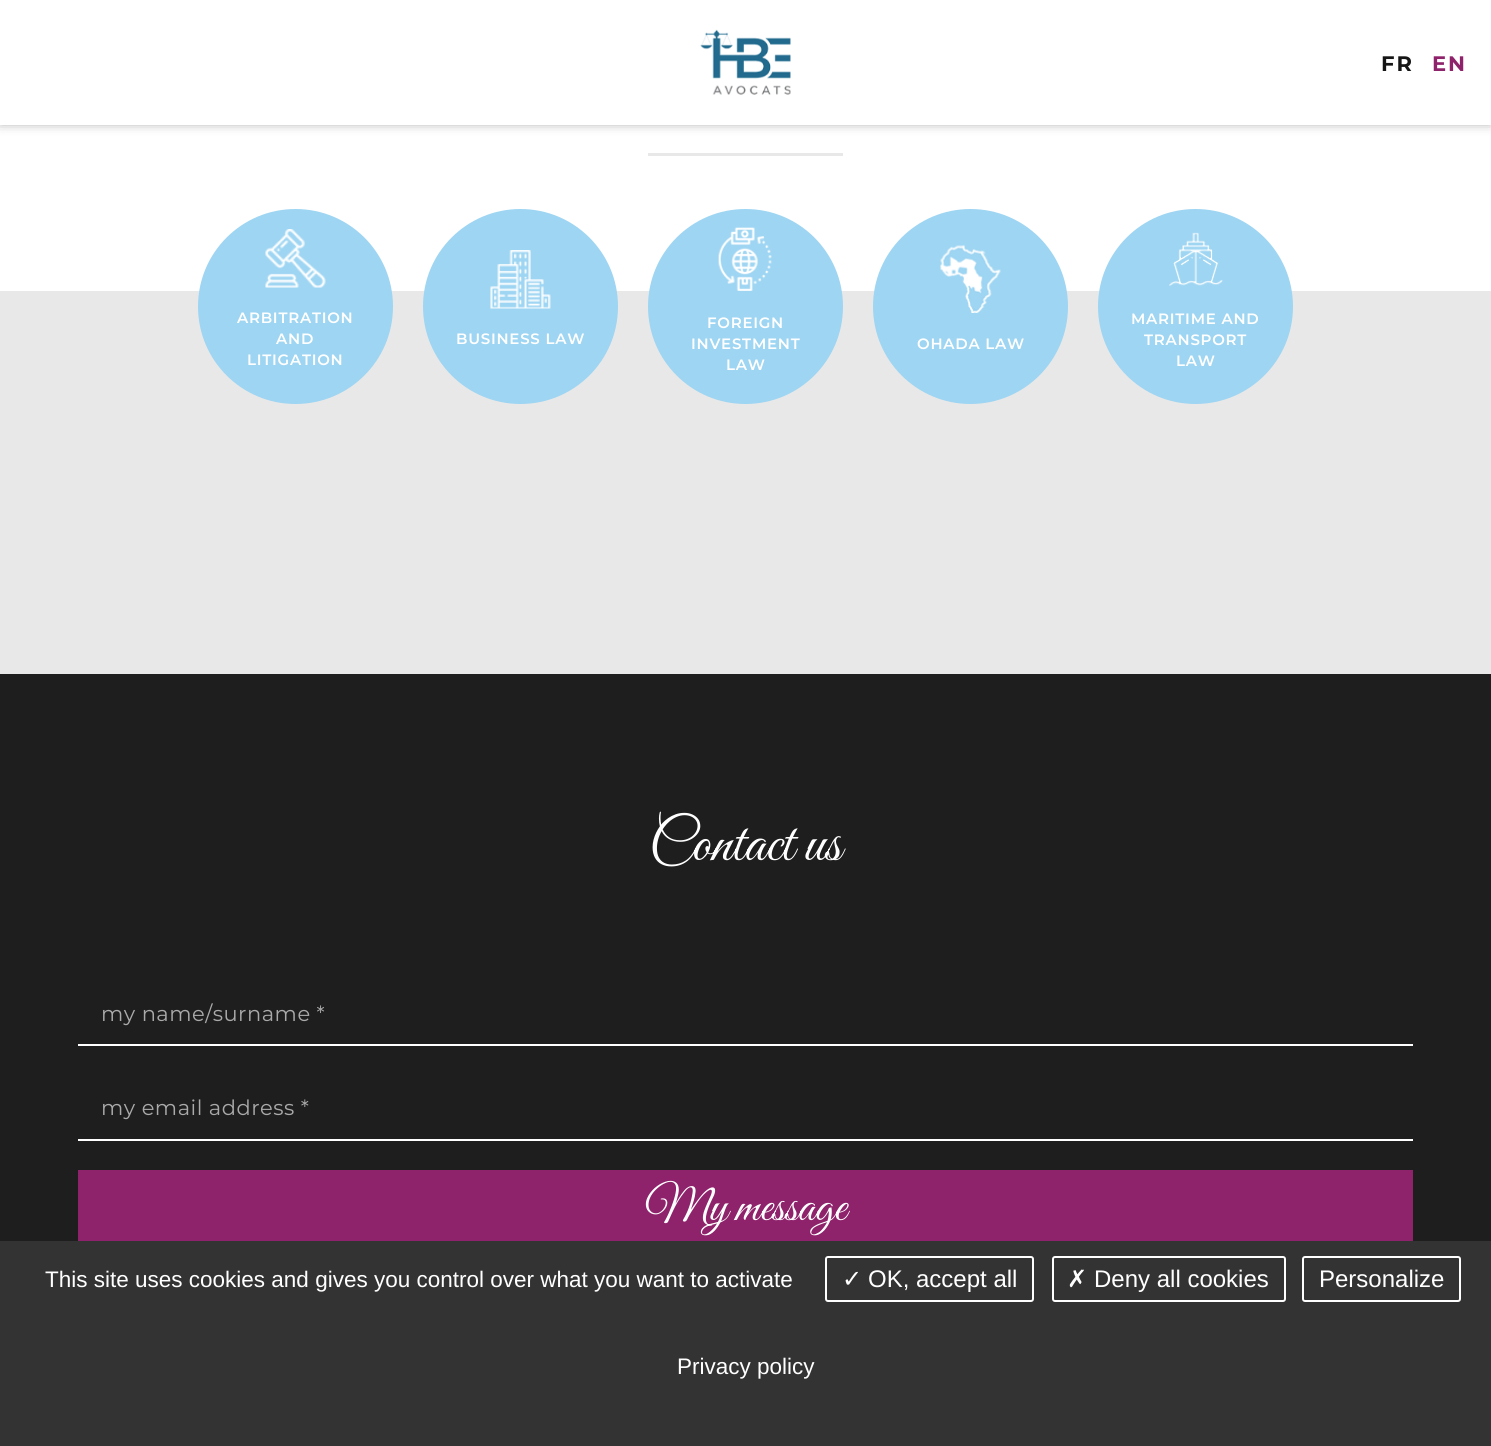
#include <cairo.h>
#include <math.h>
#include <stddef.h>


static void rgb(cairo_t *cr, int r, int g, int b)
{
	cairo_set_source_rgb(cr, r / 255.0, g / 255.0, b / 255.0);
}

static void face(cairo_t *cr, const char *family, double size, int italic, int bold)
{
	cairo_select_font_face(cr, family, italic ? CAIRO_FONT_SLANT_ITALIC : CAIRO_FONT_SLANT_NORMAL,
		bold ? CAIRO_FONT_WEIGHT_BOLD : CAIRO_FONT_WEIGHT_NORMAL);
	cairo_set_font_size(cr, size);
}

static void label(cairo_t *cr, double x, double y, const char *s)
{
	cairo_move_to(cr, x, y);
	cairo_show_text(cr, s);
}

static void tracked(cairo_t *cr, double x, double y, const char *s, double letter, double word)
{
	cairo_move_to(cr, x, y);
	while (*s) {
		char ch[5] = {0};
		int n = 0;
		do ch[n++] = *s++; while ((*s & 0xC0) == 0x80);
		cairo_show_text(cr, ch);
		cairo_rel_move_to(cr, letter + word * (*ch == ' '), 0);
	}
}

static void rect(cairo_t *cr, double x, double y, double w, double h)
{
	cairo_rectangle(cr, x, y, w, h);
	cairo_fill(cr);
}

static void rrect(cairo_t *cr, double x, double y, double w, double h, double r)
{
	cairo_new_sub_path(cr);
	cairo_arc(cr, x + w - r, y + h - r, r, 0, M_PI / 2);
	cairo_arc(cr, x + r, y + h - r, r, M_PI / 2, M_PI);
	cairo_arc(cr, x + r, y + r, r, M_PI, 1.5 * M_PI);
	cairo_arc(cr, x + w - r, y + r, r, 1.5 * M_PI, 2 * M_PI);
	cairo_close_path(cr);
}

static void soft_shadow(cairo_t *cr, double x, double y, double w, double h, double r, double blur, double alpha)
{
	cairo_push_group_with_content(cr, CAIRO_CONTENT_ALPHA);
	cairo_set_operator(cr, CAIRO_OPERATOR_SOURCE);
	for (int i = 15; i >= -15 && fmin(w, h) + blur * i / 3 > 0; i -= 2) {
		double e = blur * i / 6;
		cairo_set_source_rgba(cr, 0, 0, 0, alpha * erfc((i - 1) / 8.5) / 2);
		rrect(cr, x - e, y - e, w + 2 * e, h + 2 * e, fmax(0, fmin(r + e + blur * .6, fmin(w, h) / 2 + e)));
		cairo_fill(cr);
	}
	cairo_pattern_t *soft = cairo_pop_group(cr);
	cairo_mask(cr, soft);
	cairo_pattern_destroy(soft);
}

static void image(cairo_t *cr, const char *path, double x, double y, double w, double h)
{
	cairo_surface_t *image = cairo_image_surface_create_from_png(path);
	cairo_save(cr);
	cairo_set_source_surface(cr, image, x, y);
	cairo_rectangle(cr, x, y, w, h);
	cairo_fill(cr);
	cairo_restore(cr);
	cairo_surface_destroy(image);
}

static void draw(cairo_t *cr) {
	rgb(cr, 232, 232, 232);
	cairo_paint(cr);
	rgb(cr, 255, 255, 255);
	rect(cr, 0, 125, 1491, 166);
	rgb(cr, 0, 0, 0);
	soft_shadow(cr, 0, -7, 1491, 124, 0, 7.5, 1);
	rgb(cr, 255, 255, 255);
	rect(cr, 0, 0, 1491, 125);
	image(cr, "image0.png", 700, 29, 91, 66);
	face(cr, "Montserrat", 21, 0, 1);
	rgb(cr, 21, 21, 21);
	tracked(cr, 1381, 71, "FR", 2, 0);
	rgb(cr, 142, 34, 107);
	tracked(cr, 1432, 71, "EN", 2, 0);
	rgb(cr, 232, 232, 232);
	rect(cr, 648, 153, 195, 3);
	rgb(cr, 158, 213, 242);
	cairo_new_path(cr);
	cairo_arc(cr, 295.5, 306.5, 97.5, 0, 2 * M_PI);
	cairo_fill(cr);
	image(cr, "image1.png", 265, 229, 61, 59);
	face(cr, "Montserrat SemiBold", 15, 0, 0);
	rgb(cr, 255, 255, 255);
	tracked(cr, 237, 323, "ARBITRATION", 0.75, 0);
	tracked(cr, 276, 344, "AND", 0.75, 0);
	tracked(cr, 247, 365, "LITIGATION", 0.75, 0);
	rgb(cr, 158, 213, 242);
	cairo_new_path(cr);
	cairo_arc(cr, 520.5, 306.5, 97.5, 0, 2 * M_PI);
	cairo_fill(cr);
	image(cr, "image2.png", 490, 250, 61, 59);
	rgb(cr, 255, 255, 255);
	tracked(cr, 456, 344, "BUSINESS LAW", 0.75, 0);
	rgb(cr, 158, 213, 242);
	cairo_new_path(cr);
	cairo_arc(cr, 745.5, 306.5, 97.5, 0, 2 * M_PI);
	cairo_fill(cr);
	image(cr, "image3.png", 718, 227, 54, 64);
	rgb(cr, 255, 255, 255);
	tracked(cr, 707, 328, "FOREIGN", 0.75, 0);
	tracked(cr, 691, 349, "INVESTMENT", 0.75, 0);
	tracked(cr, 726, 370, "LAW", 0.75, 0);
	rgb(cr, 158, 213, 242);
	cairo_new_path(cr);
	cairo_arc(cr, 970.5, 306.5, 97.5, 0, 2 * M_PI);
	cairo_fill(cr);
	image(cr, "image4.png", 940, 245, 61, 68);
	rgb(cr, 255, 255, 255);
	tracked(cr, 917, 349, "OHADA LAW", 0.75, 0);
	rgb(cr, 158, 213, 242);
	cairo_new_path(cr);
	cairo_arc(cr, 1195.5, 306.5, 97.5, 0, 2 * M_PI);
	cairo_fill(cr);
	image(cr, "image5.png", 1169, 232, 54, 54);
	rgb(cr, 255, 255, 255);
	tracked(cr, 1131, 324, "MARITIME AND", 0.75, 0);
	tracked(cr, 1144, 345, "TRANSPORT", 0.75, 0);
	tracked(cr, 1176, 366, "LAW", 0.75, 0);
	rgb(cr, 30, 30, 30);
	rect(cr, 0, 674, 1491, 567);
	face(cr, "Great Vibes", 60, 0, 0);
	rgb(cr, 255, 255, 255);
	label(cr, 649, 860, "Contact us");
	rect(cr, 78, 1044, 1335, 2);
	face(cr, "Montserrat", 21, 0, 0);
	rgb(cr, 170, 170, 170);
	tracked(cr, 101, 1021, "my name/surname *", 0.5, 0);
	rgb(cr, 255, 255, 255);
	rect(cr, 78, 1139, 1335, 2);
	rgb(cr, 170, 170, 170);
	tracked(cr, 101, 1115, "my email address *", 0.5, 0);
	rgb(cr, 142, 34, 107);
	rect(cr, 78, 1170, 1335, 71);
	face(cr, "Great Vibes", 48, 0, 0);
	rgb(cr, 255, 255, 255);
	label(cr, 645, 1220, "My message");
	rgb(cr, 51, 51, 51);
	rect(cr, 0, 1241, 1491, 205);
	face(cr, "Liberation Sans", 22.5, 0, 0);
	rgb(cr, 255, 255, 255);
	label(cr, 45, 1287, "This site uses cookies and gives you control over what you want to activate");
	rrect(cr, 826, 1257, 207, 44, 2);
	cairo_stroke(cr);
	face(cr, "DejaVu Sans", 24, 0, 0);
	label(cr, 842, 1287, "✓");
	face(cr, "Liberation Sans", 24, 0, 0);
	label(cr, 868, 1287, "OK, accept all");
	rrect(cr, 1053, 1257, 232, 44, 2);
	cairo_stroke(cr);
	face(cr, "DejaVu Sans", 24, 0, 0);
	label(cr, 1067, 1287, "✗");
	face(cr, "Liberation Sans", 24, 0, 0);
	label(cr, 1094, 1287, "Deny all cookies");
	rrect(cr, 1303, 1257, 157, 44, 2);
	cairo_stroke(cr);
	label(cr, 1319, 1287, "Personalize");
	face(cr, "Liberation Sans", 22.5, 0, 0);
	label(cr, 677, 1374, "Privacy policy");
}

int main(void) {
	cairo_surface_t *surface = cairo_image_surface_create(CAIRO_FORMAT_RGB24, 1491, 1446);
	cairo_t *cr = cairo_create(surface);
	cairo_font_options_t *options = cairo_font_options_create();
	cairo_font_options_set_hint_metrics(options, CAIRO_HINT_METRICS_OFF);
	cairo_font_options_set_hint_style(options, CAIRO_HINT_STYLE_NONE);
	cairo_set_font_options(cr, options);
	cairo_set_miter_limit(cr, 4);
	draw(cr);
	cairo_surface_write_to_png(surface, "render.png");
	cairo_font_options_destroy(options);
	cairo_destroy(cr);
	cairo_surface_destroy(surface);
	return 0;
}
